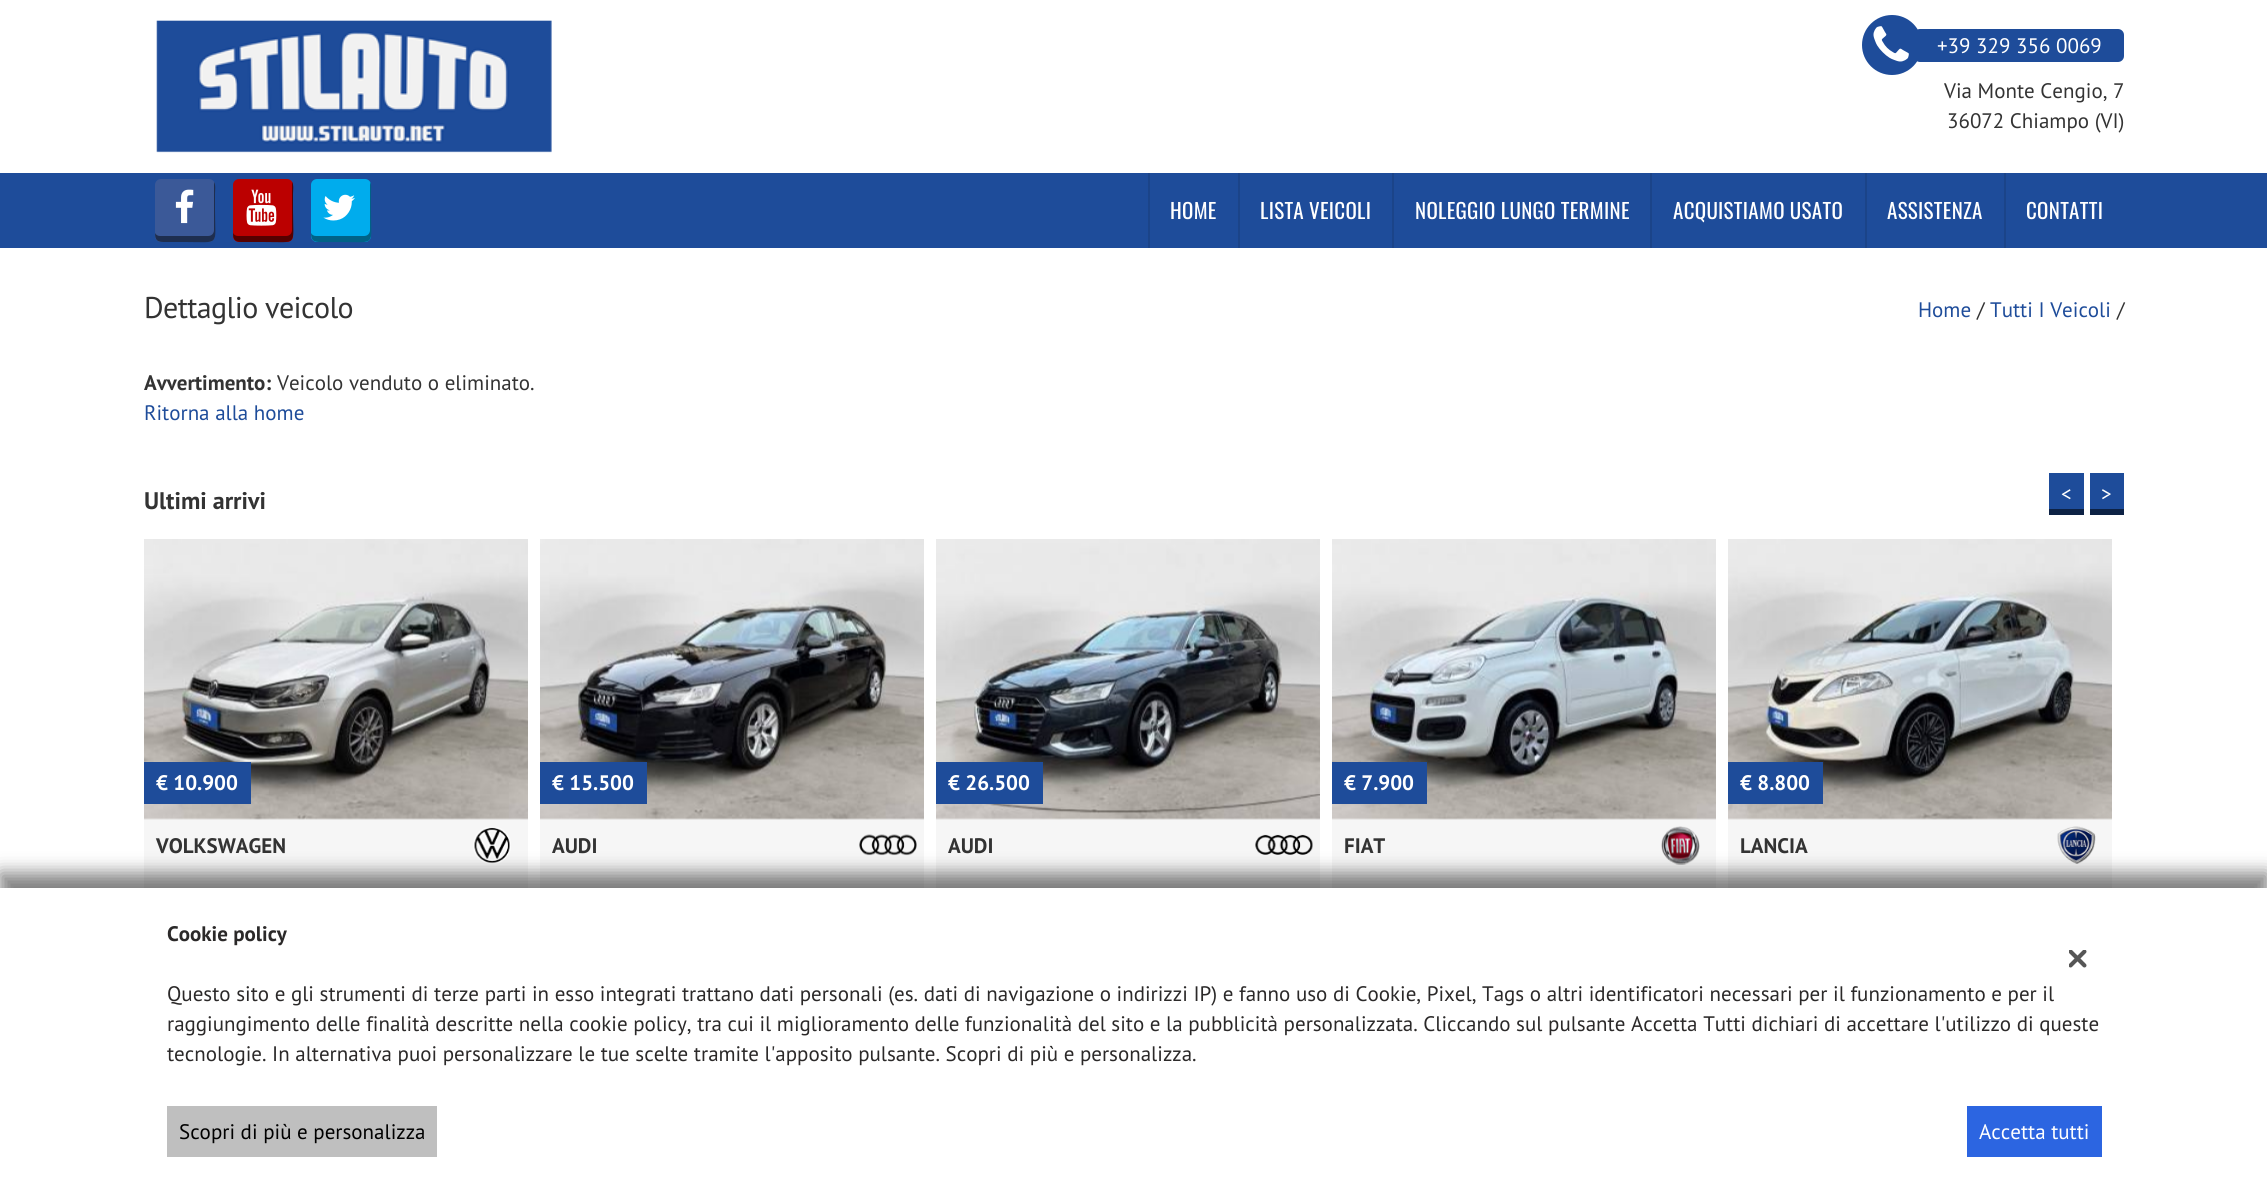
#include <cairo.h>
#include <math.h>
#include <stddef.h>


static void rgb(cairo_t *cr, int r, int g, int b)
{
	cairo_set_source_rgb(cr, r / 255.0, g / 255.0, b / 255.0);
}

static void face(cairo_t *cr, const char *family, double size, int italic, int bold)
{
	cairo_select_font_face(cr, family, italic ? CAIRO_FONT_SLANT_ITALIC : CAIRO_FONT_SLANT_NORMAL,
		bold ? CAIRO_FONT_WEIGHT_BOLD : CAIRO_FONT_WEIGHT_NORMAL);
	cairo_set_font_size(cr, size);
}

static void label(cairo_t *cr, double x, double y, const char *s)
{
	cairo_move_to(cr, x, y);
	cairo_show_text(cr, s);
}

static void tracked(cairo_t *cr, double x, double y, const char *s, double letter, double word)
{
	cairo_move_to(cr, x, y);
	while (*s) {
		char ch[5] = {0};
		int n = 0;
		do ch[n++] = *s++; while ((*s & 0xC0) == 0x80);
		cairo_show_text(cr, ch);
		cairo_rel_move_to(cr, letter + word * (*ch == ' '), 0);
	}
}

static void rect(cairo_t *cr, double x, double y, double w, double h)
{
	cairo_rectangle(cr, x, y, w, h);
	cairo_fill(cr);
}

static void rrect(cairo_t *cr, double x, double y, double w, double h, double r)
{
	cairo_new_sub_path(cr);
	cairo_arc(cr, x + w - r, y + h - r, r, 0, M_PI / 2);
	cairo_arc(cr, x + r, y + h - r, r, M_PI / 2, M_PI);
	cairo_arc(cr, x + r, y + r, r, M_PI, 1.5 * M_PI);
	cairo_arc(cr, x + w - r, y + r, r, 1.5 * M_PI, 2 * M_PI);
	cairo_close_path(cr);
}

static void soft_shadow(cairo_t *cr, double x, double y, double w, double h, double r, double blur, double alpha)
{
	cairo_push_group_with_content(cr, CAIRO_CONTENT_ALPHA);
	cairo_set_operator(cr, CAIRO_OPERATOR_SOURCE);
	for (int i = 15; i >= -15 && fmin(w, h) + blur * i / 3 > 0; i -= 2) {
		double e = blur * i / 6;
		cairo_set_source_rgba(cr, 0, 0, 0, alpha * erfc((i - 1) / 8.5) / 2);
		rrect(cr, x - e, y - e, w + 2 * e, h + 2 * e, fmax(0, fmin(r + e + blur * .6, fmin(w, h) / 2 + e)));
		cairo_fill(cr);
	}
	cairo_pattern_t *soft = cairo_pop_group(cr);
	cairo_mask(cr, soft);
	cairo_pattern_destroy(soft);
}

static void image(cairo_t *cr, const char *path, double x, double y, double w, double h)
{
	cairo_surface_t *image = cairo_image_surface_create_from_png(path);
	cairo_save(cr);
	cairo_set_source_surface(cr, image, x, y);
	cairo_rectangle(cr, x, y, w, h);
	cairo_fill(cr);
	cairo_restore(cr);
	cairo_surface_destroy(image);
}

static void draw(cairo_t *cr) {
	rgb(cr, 255, 255, 255);
	cairo_paint(cr);
	image(cr, "image0.png", 156, 20, 396, 133);
	rgb(cr, 30, 76, 154);
	cairo_arc(cr, 1892, 45, 30, 0, 2 * M_PI);
	cairo_fill(cr);
	image(cr, "image1.png", 1873, 26, 36, 36);
	rrect(cr, 1914, 29, 210, 33, 6);
	cairo_fill(cr);
	face(cr, "PT Sans", 21, 0, 0);
	rgb(cr, 255, 255, 255);
	label(cr, 1937, 53, "+39 329 356 0069");
	rgb(cr, 51, 51, 51);
	label(cr, 1944, 98, "Via Monte Cengio, 7");
	label(cr, 1947, 128, "36072 Chiampo (VI)");
	rgb(cr, 30, 76, 154);
	rect(cr, 0, 173, 2267, 75);
	rgb(cr, 59, 89, 152);
	rrect(cr, 155, 179, 60, 63, 6);
	cairo_fill(cr);
	rgb(cr, 30, 46, 79);
	cairo_new_path(cr);
	cairo_move_to(cr, 155, 233);
	cairo_curve_to(cr, 155, 243, 160, 242, 169, 242);
	cairo_line_to(cr, 185, 242);
	cairo_curve_to(cr, 221, 242, 215, 247, 215, 210);
	cairo_line_to(cr, 215, 194);
	cairo_curve_to(cr, 215, 191, 216, 185, 214, 182);
	cairo_line_to(cr, 214, 230);
	cairo_curve_to(cr, 214, 233, 212, 236, 208, 236);
	cairo_line_to(cr, 160, 236);
	cairo_curve_to(cr, 158, 236, 156, 235, 155, 233);
	cairo_close_path(cr);
	cairo_fill(cr);
	image(cr, "image2.png", 175, 189, 19, 35);
	rgb(cr, 187, 0, 0);
	rrect(cr, 233, 179, 60, 63, 6);
	cairo_fill(cr);
	rgb(cr, 85, 0, 0);
	cairo_new_path(cr);
	cairo_move_to(cr, 233, 233);
	cairo_curve_to(cr, 233, 243, 238, 242, 247, 242);
	cairo_line_to(cr, 263, 242);
	cairo_curve_to(cr, 299, 242, 293, 247, 293, 210);
	cairo_line_to(cr, 293, 194);
	cairo_curve_to(cr, 293, 191, 294, 185, 292, 182);
	cairo_line_to(cr, 292, 230);
	cairo_curve_to(cr, 292, 233, 290, 236, 286, 236);
	cairo_line_to(cr, 238, 236);
	cairo_curve_to(cr, 236, 236, 234, 235, 233, 233);
	cairo_close_path(cr);
	cairo_fill(cr);
	image(cr, "image3.png", 246, 189, 31, 37);
	rgb(cr, 0, 172, 237);
	rrect(cr, 311, 179, 60, 63, 6);
	cairo_fill(cr);
	rgb(cr, 0, 98, 135);
	cairo_new_path(cr);
	cairo_move_to(cr, 311, 233);
	cairo_curve_to(cr, 311, 243, 316, 242, 325, 242);
	cairo_line_to(cr, 341, 242);
	cairo_curve_to(cr, 377, 242, 371, 247, 371, 210);
	cairo_line_to(cr, 371, 194);
	cairo_curve_to(cr, 371, 191, 372, 185, 370, 182);
	cairo_line_to(cr, 370, 230);
	cairo_curve_to(cr, 370, 233, 368, 236, 364, 236);
	cairo_line_to(cr, 316, 236);
	cairo_curve_to(cr, 314, 236, 312, 235, 311, 233);
	cairo_close_path(cr);
	cairo_fill(cr);
	image(cr, "image4.png", 323, 194, 32, 27);
	rgb(cr, 27, 68, 137);
	rect(cr, 1148, 173, 2, 75);
	face(cr, "Oswald", 21, 0, 0);
	rgb(cr, 255, 255, 255);
	tracked(cr, 1170, 219, "HOME", 0.3, 0);
	rgb(cr, 27, 68, 137);
	rect(cr, 1238, 173, 2, 75);
	rgb(cr, 255, 255, 255);
	tracked(cr, 1260, 219, "LISTA VEICOLI", 0.3, 0);
	rgb(cr, 27, 68, 137);
	rect(cr, 1392, 173, 2, 75);
	rgb(cr, 255, 255, 255);
	tracked(cr, 1415, 219, "NOLEGGIO LUNGO TERMINE", 0.3, 0);
	rgb(cr, 27, 68, 137);
	rect(cr, 1650, 173, 2, 75);
	rgb(cr, 255, 255, 255);
	tracked(cr, 1673, 219, "ACQUISTIAMO USATO", 0.3, 0);
	rgb(cr, 27, 68, 137);
	rect(cr, 1865, 173, 2, 75);
	rgb(cr, 255, 255, 255);
	tracked(cr, 1887, 219, "ASSISTENZA", 0.3, 0);
	rgb(cr, 27, 68, 137);
	rect(cr, 2004, 173, 2, 75);
	rgb(cr, 255, 255, 255);
	tracked(cr, 2026, 219, "CONTATTI", 0.3, 0);
	face(cr, "PT Sans", 30, 0, 0);
	rgb(cr, 51, 51, 51);
	tracked(cr, 144, 318, "Dettaglio veicolo", -0.6, 0);
	face(cr, "PT Sans", 21, 0, 0);
	rgb(cr, 30, 76, 154);
	label(cr, 1918, 317, "Home");
	rgb(cr, 51, 51, 51);
	label(cr, 1977, 317, "/");
	rgb(cr, 30, 76, 154);
	label(cr, 1990, 317, "Tutti I Veicoli");
	rgb(cr, 51, 51, 51);
	label(cr, 2117, 317, "/");
	face(cr, "PT Sans", 21, 0, 1);
	label(cr, 144, 390, "Avvertimento:");
	face(cr, "PT Sans", 21, 0, 0);
	label(cr, 277, 390, "Veicolo venduto o eliminato.");
	rgb(cr, 30, 76, 154);
	label(cr, 144, 420, "Ritorna alla home");
	face(cr, "PT Sans", 24, 0, 1);
	rgb(cr, 51, 51, 51);
	label(cr, 144, 509, "Ultimi arrivi");
	rgb(cr, 30, 76, 154);
	rect(cr, 2049, 473, 35, 36);
	rgb(cr, 13, 34, 69);
	rect(cr, 2049, 509, 35, 6);
	face(cr, "PT Sans", 21, 0, 0);
	rgb(cr, 255, 255, 255);
	label(cr, 2061, 501, "<");
	rgb(cr, 30, 76, 154);
	rect(cr, 2090, 473, 34, 36);
	rgb(cr, 13, 34, 69);
	rect(cr, 2090, 509, 34, 6);
	rgb(cr, 255, 255, 255);
	label(cr, 2101, 501, ">");
	rgb(cr, 246, 246, 246);
	rect(cr, 144, 818, 384, 70);
	image(cr, "image5.png", 144, 539, 384, 281);
	rgb(cr, 30, 76, 154);
	rect(cr, 144, 762, 107, 42);
	face(cr, "PT Sans", 21, 0, 1);
	rgb(cr, 255, 255, 255);
	label(cr, 156, 790, "€ 10.900");
	rgb(cr, 51, 51, 51);
	label(cr, 156, 853, "VOLKSWAGEN");
	image(cr, "image6.png", 473, 827, 38, 37);
	rgb(cr, 246, 246, 246);
	rect(cr, 540, 818, 384, 70);
	image(cr, "image7.png", 540, 539, 384, 281);
	rgb(cr, 30, 76, 154);
	rect(cr, 540, 762, 107, 42);
	rgb(cr, 255, 255, 255);
	label(cr, 552, 790, "€ 15.500");
	rgb(cr, 51, 51, 51);
	label(cr, 552, 853, "AUDI");
	image(cr, "image8.png", 859, 834, 58, 22);
	rgb(cr, 246, 246, 246);
	rect(cr, 936, 818, 384, 70);
	image(cr, "image9.png", 936, 539, 384, 281);
	rgb(cr, 30, 76, 154);
	rect(cr, 936, 762, 107, 42);
	rgb(cr, 255, 255, 255);
	label(cr, 948, 790, "€ 26.500");
	rgb(cr, 51, 51, 51);
	label(cr, 948, 853, "AUDI");
	image(cr, "image10.png", 1255, 834, 58, 21);
	rgb(cr, 246, 246, 246);
	rect(cr, 1332, 818, 384, 70);
	image(cr, "image11.png", 1332, 539, 384, 281);
	rgb(cr, 30, 76, 154);
	rect(cr, 1332, 762, 95, 42);
	rgb(cr, 255, 255, 255);
	label(cr, 1344, 790, "€ 7.900");
	rgb(cr, 51, 51, 51);
	label(cr, 1344, 853, "FIAT");
	image(cr, "image12.png", 1661, 826, 39, 39);
	rgb(cr, 246, 246, 246);
	rect(cr, 1728, 818, 384, 70);
	image(cr, "image13.png", 1728, 539, 384, 281);
	rgb(cr, 30, 76, 154);
	rect(cr, 1728, 762, 95, 42);
	rgb(cr, 255, 255, 255);
	label(cr, 1740, 790, "€ 8.800");
	rgb(cr, 51, 51, 51);
	label(cr, 1740, 853, "LANCIA");
	image(cr, "image14.png", 2057, 826, 39, 38);
	rgb(cr, 0, 0, 0);
	soft_shadow(cr, 0, 873, 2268, 314, 0, 9, 0.5);
	rgb(cr, 255, 255, 255);
	rect(cr, 0, 888, 2267, 313);
	rgb(cr, 43, 41, 41);
	label(cr, 167, 941, "Cookie policy");
	face(cr, "PT Sans", 21, 0, 0);
	label(cr, 167, 1001, "Questo sito e gli strumenti di terze parti in esso integrati trattano dati personali (es. dati di navigazione o indirizzi IP) e fanno uso di Cookie, Pixel, Tags o altri identificatori necessari per il funzionamento e per il");
	label(cr, 167, 1031, "raggiungimento delle finalità descritte nella cookie policy, tra cui il miglioramento delle funzionalità del sito e la pubblicità personalizzata. Cliccando sul pulsante Accetta Tutti dichiari di accettare l'utilizzo di queste");
	label(cr, 167, 1061, "tecnologie. In alternativa puoi personalizzare le tue scelte tramite l'apposito pulsante. Scopri di più e personalizza.");
	rgb(cr, 191, 191, 191);
	rect(cr, 167, 1106, 270, 51);
	rgb(cr, 0, 0, 0);
	label(cr, 179, 1139, "Scopri di più e personalizza");
	rgb(cr, 44, 101, 225);
	rect(cr, 1967, 1106, 135, 51);
	rgb(cr, 255, 255, 255);
	label(cr, 1979, 1139, "Accetta tutti");
	image(cr, "image15.png", 2069, 950, 18, 18);
}

int main(void) {
	cairo_surface_t *surface = cairo_image_surface_create(CAIRO_FORMAT_RGB24, 2267, 1201);
	cairo_t *cr = cairo_create(surface);
	cairo_font_options_t *options = cairo_font_options_create();
	cairo_font_options_set_hint_metrics(options, CAIRO_HINT_METRICS_OFF);
	cairo_font_options_set_hint_style(options, CAIRO_HINT_STYLE_NONE);
	cairo_set_font_options(cr, options);
	cairo_set_miter_limit(cr, 4);
	draw(cr);
	cairo_surface_write_to_png(surface, "render.png");
	cairo_font_options_destroy(options);
	cairo_destroy(cr);
	cairo_surface_destroy(surface);
	return 0;
}
